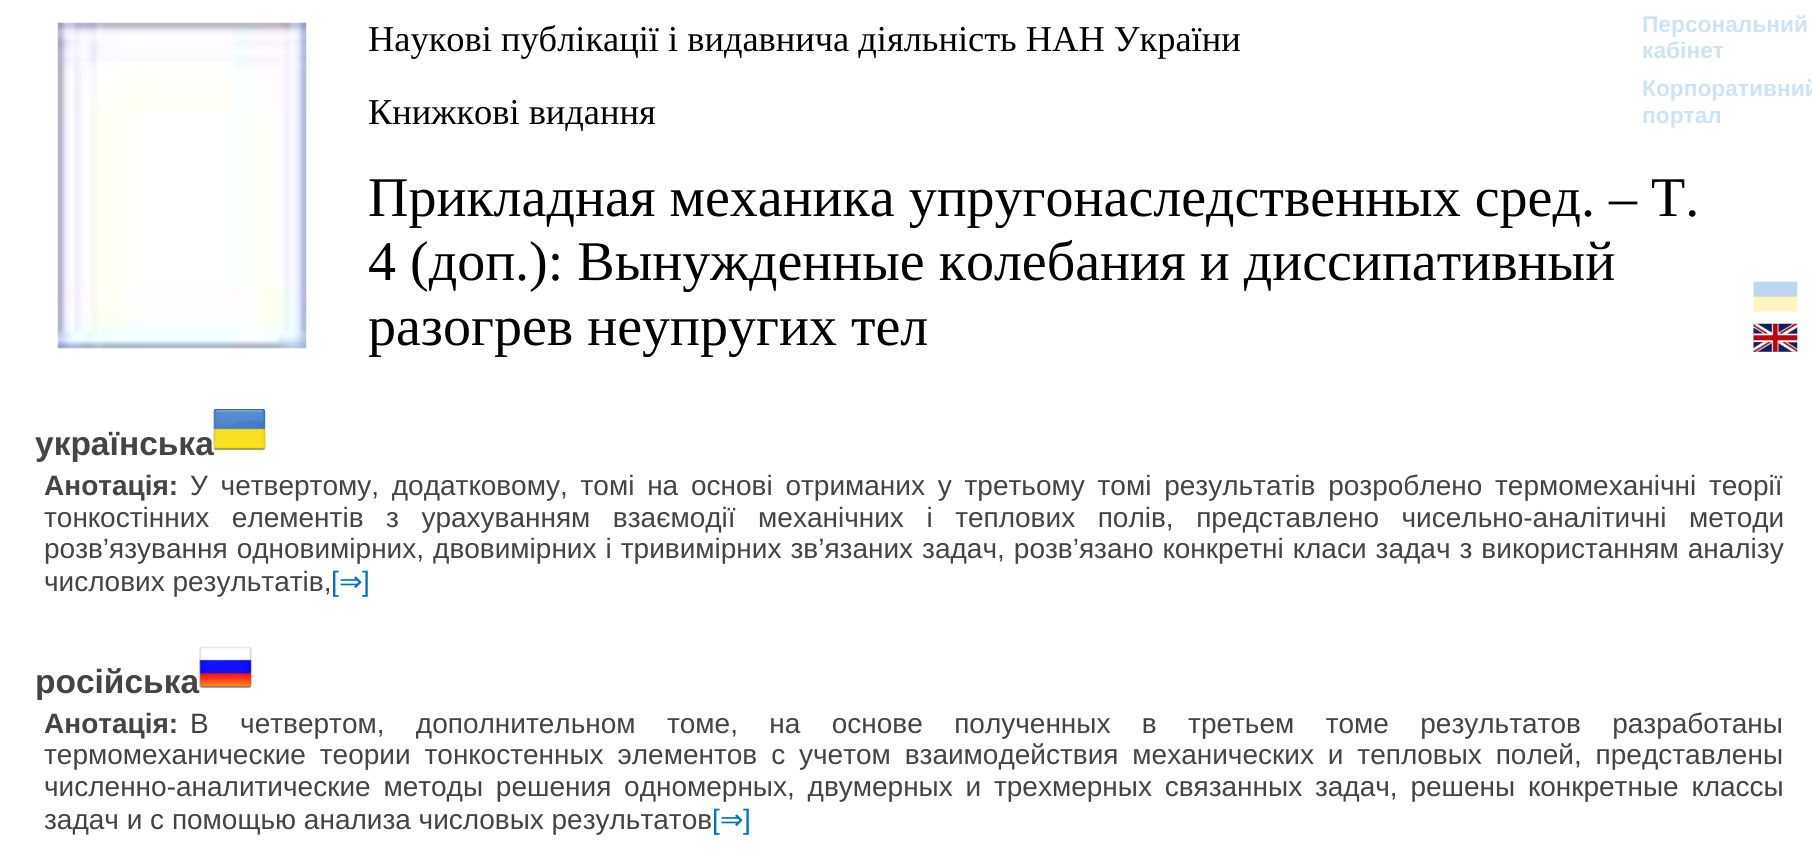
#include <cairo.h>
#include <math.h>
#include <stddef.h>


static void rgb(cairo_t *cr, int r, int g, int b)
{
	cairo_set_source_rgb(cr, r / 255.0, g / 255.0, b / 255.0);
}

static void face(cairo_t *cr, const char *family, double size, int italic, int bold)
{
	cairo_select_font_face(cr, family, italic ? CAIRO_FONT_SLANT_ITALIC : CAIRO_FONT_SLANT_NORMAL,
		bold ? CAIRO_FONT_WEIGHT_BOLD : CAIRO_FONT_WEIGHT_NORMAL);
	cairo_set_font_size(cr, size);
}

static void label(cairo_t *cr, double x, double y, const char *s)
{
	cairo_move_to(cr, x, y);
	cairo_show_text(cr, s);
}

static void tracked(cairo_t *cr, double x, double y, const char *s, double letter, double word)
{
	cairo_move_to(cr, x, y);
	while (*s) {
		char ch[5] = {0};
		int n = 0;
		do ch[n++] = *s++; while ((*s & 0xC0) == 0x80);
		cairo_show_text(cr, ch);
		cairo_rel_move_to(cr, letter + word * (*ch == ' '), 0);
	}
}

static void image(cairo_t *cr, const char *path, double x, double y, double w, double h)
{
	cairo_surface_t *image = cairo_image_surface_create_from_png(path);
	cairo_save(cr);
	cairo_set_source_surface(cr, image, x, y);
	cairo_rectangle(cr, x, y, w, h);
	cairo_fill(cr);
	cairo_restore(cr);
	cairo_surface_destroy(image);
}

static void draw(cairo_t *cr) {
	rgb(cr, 255, 255, 255);
	cairo_paint(cr);
	image(cr, "image0.png", 57, 22, 250, 327);
	face(cr, "Liberation Serif", 36.4, 0, 0);
	rgb(cr, 0, 0, 0);
	label(cr, 368, 51, "Наукові публікації і видавнича діяльність НАН України");
	face(cr, "Liberation Sans", 22.75, 0, 1);
	rgb(cr, 204, 227, 244);
	label(cr, 1642, 32, "Персональний");
	label(cr, 1642, 58, "кабінет");
	label(cr, 1642, 96, "Корпоративний");
	label(cr, 1642, 123, "портал");
	face(cr, "Liberation Serif", 36.4, 0, 0);
	rgb(cr, 0, 0, 0);
	label(cr, 368, 124, "Книжкові видання");
	image(cr, "image1.png", 1753, 281, 45, 31);
	image(cr, "image2.png", 1753, 323, 45, 29);
	face(cr, "Liberation Serif", 56, 0, 0);
	label(cr, 368, 216, "Прикладная механика упругонаследственных сред. – Т.");
	label(cr, 368, 280, "4 (доп.): Вынужденные колебания и диссипативный");
	label(cr, 368, 345, "разогрев неупругих тел");
	face(cr, "Liberation Sans", 33.5, 0, 1);
	rgb(cr, 68, 68, 68);
	label(cr, 35, 455, "українська");
	image(cr, "image3.png", 213, 409, 53, 42);
	face(cr, "Liberation Sans", 28, 0, 1);
	label(cr, 44, 495, "Анотація:");
	face(cr, "Liberation Sans", 28, 0, 0);
	tracked(cr, 190, 495, "У четвертому, додатковому, томі на основі отриманих у третьому томі результатів розроблено термомеханічні теорії", 0, 5);
	tracked(cr, 44, 527, "тонкостінних елементів з урахуванням взаємодії механічних і теплових полів, представлено чисельно-аналітичні методи", 0, 14.75);
	tracked(cr, 44, 558, "розв’язування одновимірних, двовимірних і тривимірних зв’язаних задач, розв’язано конкретні класи задач з використанням аналізу", 0, 1.25);
	label(cr, 44, 591, "числових результатів,");
	rgb(cr, 0, 114, 198);
	label(cr, 331, 591, "[");
	face(cr, "DejaVu Sans", 28, 0, 0);
	label(cr, 339, 591, "⇒");
	face(cr, "Liberation Sans", 28, 0, 0);
	label(cr, 362, 591, "]");
	face(cr, "Liberation Sans", 33.5, 0, 1);
	rgb(cr, 68, 68, 68);
	label(cr, 35, 693, "російська");
	image(cr, "image4.png", 199, 646, 53, 43);
	face(cr, "Liberation Sans", 28, 0, 1);
	label(cr, 44, 733, "Анотація:");
	face(cr, "Liberation Sans", 28, 0, 0);
	tracked(cr, 190, 733, "В четвертом, дополнительном томе, на основе полученных в третьем томе результатов разработаны", 0, 23.6);
	tracked(cr, 44, 764, "термомеханические теории тонкостенных элементов с учетом взаимодействия механических и тепловых полей, представлены", 0, 6.1);
	tracked(cr, 44, 796, "численно-аналитические методы решения одномерных, двумерных и трехмерных связанных задач, решены конкретные классы", 0, 5);
	label(cr, 44, 829, "задач и с помощью анализа числовых результатов");
	rgb(cr, 0, 114, 198);
	label(cr, 712, 829, "[");
	face(cr, "DejaVu Sans", 28, 0, 0);
	label(cr, 720, 829, "⇒");
	face(cr, "Liberation Sans", 28, 0, 0);
	label(cr, 743, 829, "]");
}

int main(void) {
	cairo_surface_t *surface = cairo_image_surface_create(CAIRO_FORMAT_RGB24, 1812, 864);
	cairo_t *cr = cairo_create(surface);
	cairo_font_options_t *options = cairo_font_options_create();
	cairo_font_options_set_hint_metrics(options, CAIRO_HINT_METRICS_OFF);
	cairo_font_options_set_hint_style(options, CAIRO_HINT_STYLE_NONE);
	cairo_set_font_options(cr, options);
	cairo_set_miter_limit(cr, 4);
	draw(cr);
	cairo_surface_write_to_png(surface, "render.png");
	cairo_font_options_destroy(options);
	cairo_destroy(cr);
	cairo_surface_destroy(surface);
	return 0;
}
